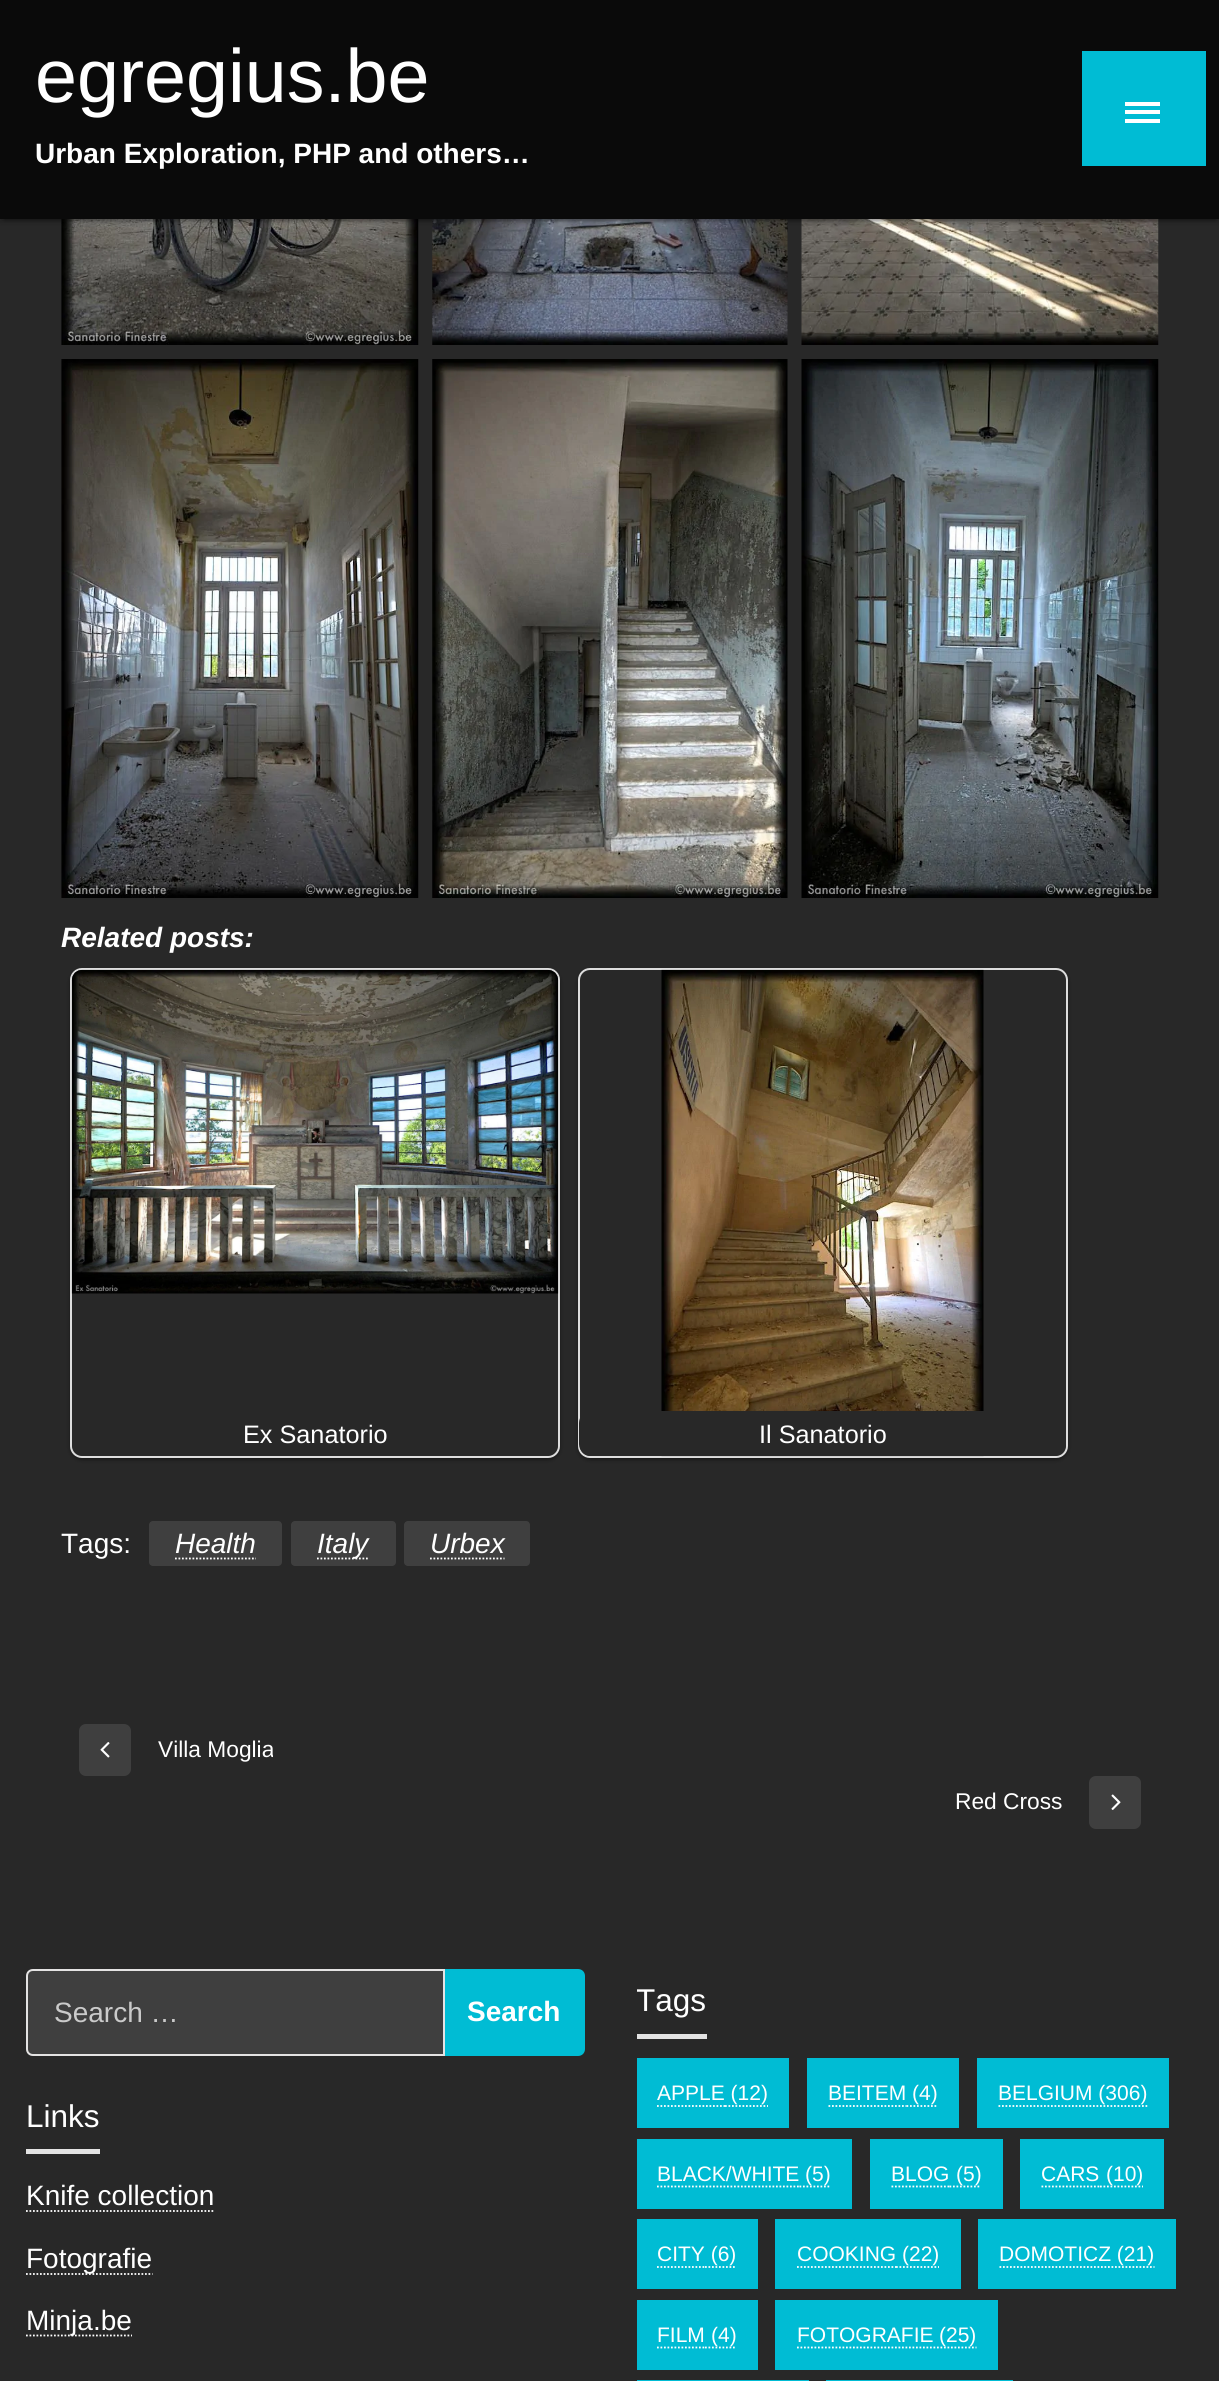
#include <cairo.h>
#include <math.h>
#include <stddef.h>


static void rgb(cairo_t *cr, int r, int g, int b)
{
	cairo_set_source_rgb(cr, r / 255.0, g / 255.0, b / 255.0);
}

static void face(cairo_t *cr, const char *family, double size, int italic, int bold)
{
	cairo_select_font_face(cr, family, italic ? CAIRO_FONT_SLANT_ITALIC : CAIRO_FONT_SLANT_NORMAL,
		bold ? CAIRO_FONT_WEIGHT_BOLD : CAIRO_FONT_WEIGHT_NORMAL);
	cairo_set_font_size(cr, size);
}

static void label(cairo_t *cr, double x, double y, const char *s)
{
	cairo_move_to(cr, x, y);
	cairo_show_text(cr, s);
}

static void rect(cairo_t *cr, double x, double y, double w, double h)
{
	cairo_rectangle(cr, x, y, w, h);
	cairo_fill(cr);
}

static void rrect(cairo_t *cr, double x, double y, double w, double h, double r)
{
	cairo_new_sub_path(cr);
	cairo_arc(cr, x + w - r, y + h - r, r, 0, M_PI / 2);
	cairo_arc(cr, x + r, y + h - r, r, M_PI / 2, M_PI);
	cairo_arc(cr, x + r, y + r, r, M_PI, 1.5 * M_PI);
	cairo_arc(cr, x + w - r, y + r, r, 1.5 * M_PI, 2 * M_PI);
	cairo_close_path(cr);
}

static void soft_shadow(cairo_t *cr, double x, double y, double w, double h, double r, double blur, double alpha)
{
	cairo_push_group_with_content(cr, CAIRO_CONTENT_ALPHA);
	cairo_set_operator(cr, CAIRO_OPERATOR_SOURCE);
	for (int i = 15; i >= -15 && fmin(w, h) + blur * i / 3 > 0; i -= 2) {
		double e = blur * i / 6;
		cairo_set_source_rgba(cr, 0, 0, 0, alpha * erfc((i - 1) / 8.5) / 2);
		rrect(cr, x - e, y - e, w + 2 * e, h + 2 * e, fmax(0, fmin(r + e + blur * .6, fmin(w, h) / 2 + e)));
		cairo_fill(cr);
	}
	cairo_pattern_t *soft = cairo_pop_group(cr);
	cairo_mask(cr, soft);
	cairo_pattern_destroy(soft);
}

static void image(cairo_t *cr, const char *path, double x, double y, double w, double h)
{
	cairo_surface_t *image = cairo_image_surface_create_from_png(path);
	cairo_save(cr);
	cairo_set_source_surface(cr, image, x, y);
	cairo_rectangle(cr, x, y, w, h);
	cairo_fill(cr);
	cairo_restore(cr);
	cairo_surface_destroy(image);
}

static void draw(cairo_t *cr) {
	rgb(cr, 40, 40, 40);
	cairo_paint(cr);
	image(cr, "image0.png", 61, 219, 358, 126);
	image(cr, "image1.png", 432, 219, 356, 126);
	image(cr, "image2.png", 801, 219, 358, 126);
	rgb(cr, 0, 0, 0);
	soft_shadow(cr, 0, 2, 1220, 219, 0, 4.5, 0.12);
	soft_shadow(cr, 4, 9, 1212, 212, 0, 1, 0.2);
	soft_shadow(cr, 0, 4, 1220, 218, 0, 2, 0.14);
	rgb(cr, 10, 10, 10);
	rect(cr, 0, 0, 1219, 219);
	face(cr, "Liberation Sans", 75.5, 0, 0);
	rgb(cr, 255, 255, 255);
	label(cr, 35, 102, "egregius.be");
	face(cr, "Liberation Sans", 28, 0, 1);
	label(cr, 35, 163, "Urban Exploration, PHP and others…");
	rgb(cr, 0, 188, 212);
	rect(cr, 1082, 51, 124, 115);
	rgb(cr, 255, 255, 255);
	rect(cr, 1125, 102, 35, 4);
	rect(cr, 1125, 110, 35, 4);
	rect(cr, 1125, 119, 35, 4);
	image(cr, "image3.png", 61, 359, 358, 539);
	image(cr, "image4.png", 432, 359, 356, 539);
	image(cr, "image5.png", 801, 359, 358, 539);
	face(cr, "Liberation Sans", 28, 1, 1);
	label(cr, 61, 947, "Related posts:");
	cairo_save(cr);
	cairo_set_fill_rule(cr, CAIRO_FILL_RULE_EVEN_ODD);
	cairo_new_path(cr);
	cairo_move_to(cr, 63, 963);
	cairo_line_to(cr, 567, 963);
	cairo_line_to(cr, 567, 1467);
	cairo_line_to(cr, 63, 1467);
	cairo_close_path(cr);
	cairo_move_to(cr, 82, 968);
	cairo_line_to(cr, 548, 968);
	cairo_curve_to(cr, 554.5, 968, 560, 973.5, 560, 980);
	cairo_line_to(cr, 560, 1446);
	cairo_curve_to(cr, 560, 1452.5, 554.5, 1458, 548, 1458);
	cairo_line_to(cr, 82, 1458);
	cairo_curve_to(cr, 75.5, 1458, 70, 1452.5, 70, 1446);
	cairo_line_to(cr, 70, 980);
	cairo_curve_to(cr, 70, 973.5, 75.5, 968, 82, 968);
	cairo_close_path(cr);
	cairo_clip(cr);
	rgb(cr, 0, 0, 0);
	soft_shadow(cr, 70, 970, 490, 490, 12, 2, 0.4);
	cairo_restore(cr);
	rrect(cr, 71, 969, 488, 488, 11);
	rgb(cr, 221, 221, 221);
	cairo_stroke(cr);
	image(cr, "image6.png", 71, 969, 488, 325);
	cairo_save(cr);
	rrect(cr, 72, 970, 486, 486, 11);
	cairo_clip(cr);
	rgb(cr, 40, 40, 40);
	rrect(cr, 72, 1411, 486, 45, 12);
	cairo_fill(cr);
	cairo_restore(cr);
	face(cr, "Liberation Sans", 25.25, 0, 0);
	rgb(cr, 255, 255, 255);
	label(cr, 243, 1443, "Ex Sanatorio");
	cairo_save(cr);
	cairo_set_fill_rule(cr, CAIRO_FILL_RULE_EVEN_ODD);
	cairo_new_path(cr);
	cairo_move_to(cr, 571, 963);
	cairo_line_to(cr, 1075, 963);
	cairo_line_to(cr, 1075, 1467);
	cairo_line_to(cr, 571, 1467);
	cairo_close_path(cr);
	cairo_move_to(cr, 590, 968);
	cairo_line_to(cr, 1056, 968);
	cairo_curve_to(cr, 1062.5, 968, 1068, 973.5, 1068, 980);
	cairo_line_to(cr, 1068, 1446);
	cairo_curve_to(cr, 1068, 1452.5, 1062.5, 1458, 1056, 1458);
	cairo_line_to(cr, 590, 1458);
	cairo_curve_to(cr, 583.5, 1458, 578, 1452.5, 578, 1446);
	cairo_line_to(cr, 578, 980);
	cairo_curve_to(cr, 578, 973.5, 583.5, 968, 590, 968);
	cairo_close_path(cr);
	cairo_clip(cr);
	rgb(cr, 0, 0, 0);
	soft_shadow(cr, 578, 970, 490, 490, 12, 2, 0.4);
	cairo_restore(cr);
	rrect(cr, 579, 969, 488, 488, 11);
	rgb(cr, 221, 221, 221);
	cairo_stroke(cr);
	image(cr, "image7.png", 661, 969, 323, 488);
	cairo_save(cr);
	rrect(cr, 579, 970, 487, 486, 11);
	cairo_clip(cr);
	rgb(cr, 40, 40, 40);
	rrect(cr, 579, 1411, 487, 45, 12);
	cairo_fill(cr);
	cairo_restore(cr);
	rgb(cr, 255, 255, 255);
	label(cr, 759, 1443, "Il Sanatorio");
	face(cr, "Liberation Sans", 28, 0, 0);
	label(cr, 61, 1553, "Tags:");
	rgb(cr, 63, 63, 63);
	rrect(cr, 149, 1521, 133, 45, 4);
	cairo_fill(cr);
	face(cr, "Liberation Sans", 28, 1, 0);
	rgb(cr, 255, 255, 255);
	label(cr, 175, 1553, "Health");
	cairo_new_path(cr);
	cairo_move_to(cr, 175, 1558.5);
	cairo_line_to(cr, 256, 1558.5);
	cairo_set_line_width(cr, 1.8);
	cairo_set_dash(cr, (double[]){1.75, 1.75}, 2, 0);
	cairo_stroke(cr);
	rgb(cr, 63, 63, 63);
	rrect(cr, 291, 1521, 105, 45, 4);
	cairo_fill(cr);
	cairo_new_path(cr);
	cairo_move_to(cr, 317, 1558.5);
	cairo_line_to(cr, 368.5, 1558.5);
	rgb(cr, 255, 255, 255);
	cairo_stroke(cr);
	label(cr, 317, 1553, "Italy");
	rgb(cr, 63, 63, 63);
	rrect(cr, 404, 1521, 126, 45, 4);
	cairo_fill(cr);
	rgb(cr, 255, 255, 255);
	label(cr, 430, 1553, "Urbex");
	cairo_new_path(cr);
	cairo_move_to(cr, 430, 1558.5);
	cairo_line_to(cr, 504.5, 1558.5);
	cairo_stroke(cr);
	rgb(cr, 63, 63, 63);
	rrect(cr, 79, 1724, 52, 52, 7);
	cairo_fill(cr);
	image(cr, "image8.png", 100, 1742, 10, 16);
	cairo_save(cr);
	cairo_rectangle(cr, 158, 1733, 115, 36);
	cairo_clip(cr);
	face(cr, "Liberation Sans", 22.75, 0, 0);
	rgb(cr, 255, 255, 255);
	label(cr, 158, 1757, "Villa Moglia");
	cairo_restore(cr);
	face(cr, "Liberation Sans", 22.75, 0, 0);
	rgb(cr, 255, 255, 255);
	label(cr, 955, 1809, "Red Cross");
	rgb(cr, 63, 63, 63);
	rrect(cr, 1089, 1776, 52, 53, 7);
	cairo_fill(cr);
	image(cr, "image9.png", 1111, 1794, 10, 16);
	cairo_new_path(cr);
	cairo_move_to(cr, 33, 1970);
	cairo_line_to(cr, 444, 1970);
	cairo_line_to(cr, 444, 2055);
	cairo_line_to(cr, 33, 2055);
	cairo_curve_to(cr, 29.5, 2055, 27, 2052.5, 27, 2049);
	cairo_line_to(cr, 27, 1976);
	cairo_curve_to(cr, 27, 1972.5, 29.5, 1970, 33, 1970);
	cairo_close_path(cr);
	cairo_fill_preserve(cr);
	rgb(cr, 228, 227, 227);
	cairo_set_line_width(cr, 2);
	cairo_set_dash(cr, NULL, 0, 0);
	cairo_stroke(cr);
	face(cr, "Liberation Sans", 28, 0, 0);
	rgb(cr, 202, 202, 202);
	label(cr, 54, 2022, "Search …");
	rgb(cr, 0, 188, 212);
	cairo_new_path(cr);
	cairo_move_to(cr, 445, 1969);
	cairo_line_to(cr, 578, 1969);
	cairo_curve_to(cr, 582, 1969, 585, 1972, 585, 1976);
	cairo_line_to(cr, 585, 2049);
	cairo_curve_to(cr, 585, 2053, 582, 2056, 578, 2056);
	cairo_line_to(cr, 445, 2056);
	cairo_close_path(cr);
	cairo_fill(cr);
	face(cr, "Liberation Sans", 28, 0, 1);
	rgb(cr, 255, 255, 255);
	label(cr, 467, 2021, "Search");
	rgb(cr, 227, 227, 227);
	rect(cr, 26, 2149, 74, 5);
	face(cr, "Liberation Sans", 31.5, 0, 0);
	rgb(cr, 255, 255, 255);
	label(cr, 26, 2127, "Links");
	face(cr, "Liberation Sans", 28, 0, 0);
	label(cr, 26, 2205, "Knife collection");
	cairo_new_path(cr);
	cairo_move_to(cr, 26, 2211);
	cairo_line_to(cr, 214.5, 2211);
	cairo_set_line_width(cr, 1.8);
	cairo_set_dash(cr, (double[]){1.75, 1.75}, 2, 0);
	cairo_stroke(cr);
	cairo_new_path(cr);
	cairo_move_to(cr, 26, 2274);
	cairo_line_to(cr, 152.5, 2274);
	cairo_stroke(cr);
	label(cr, 26, 2268, "Fotografie");
	cairo_new_path(cr);
	cairo_move_to(cr, 26, 2335.5);
	cairo_line_to(cr, 132, 2335.5);
	cairo_stroke(cr);
	label(cr, 26, 2330, "Minja.be");
	rgb(cr, 227, 227, 227);
	rect(cr, 637, 2034, 70, 5);
	cairo_save(cr);
	cairo_rectangle(cr, 637, 1969, 557, 70);
	cairo_clip(cr);
	face(cr, "Liberation Sans", 31.5, 0, 0);
	rgb(cr, 255, 255, 255);
	label(cr, 636, 2011, "Tags");
	cairo_restore(cr);
	rgb(cr, 0, 188, 212);
	rect(cr, 637, 2058, 152, 70);
	face(cr, "Liberation Sans", 21, 0, 0);
	rgb(cr, 255, 255, 255);
	label(cr, 657, 2100, "APPLE (12)");
	cairo_new_path(cr);
	cairo_move_to(cr, 657, 2106);
	cairo_line_to(cr, 725, 2106);
	cairo_stroke(cr);
	cairo_new_path(cr);
	cairo_move_to(cr, 725, 2106);
	cairo_line_to(cr, 768, 2106);
	cairo_stroke(cr);
	rgb(cr, 0, 188, 212);
	rect(cr, 807, 2058, 152, 70);
	rgb(cr, 255, 255, 255);
	label(cr, 828, 2100, "BEITEM (4)");
	cairo_new_path(cr);
	cairo_move_to(cr, 828.5, 2106);
	cairo_line_to(cr, 906.5, 2106);
	cairo_stroke(cr);
	cairo_new_path(cr);
	cairo_move_to(cr, 906.5, 2106);
	cairo_line_to(cr, 938, 2106);
	cairo_stroke(cr);
	rgb(cr, 0, 188, 212);
	rect(cr, 977, 2058, 192, 70);
	rgb(cr, 255, 255, 255);
	label(cr, 998, 2100, "BELGIUM (306)");
	cairo_new_path(cr);
	cairo_move_to(cr, 998.5, 2106);
	cairo_line_to(cr, 1093, 2106);
	cairo_stroke(cr);
	cairo_new_path(cr);
	cairo_move_to(cr, 1093, 2106);
	cairo_line_to(cr, 1147.5, 2106);
	cairo_stroke(cr);
	rgb(cr, 0, 188, 212);
	rect(cr, 637, 2139, 215, 70);
	rgb(cr, 255, 255, 255);
	label(cr, 657, 2181, "BLACK/WHITE");
	cairo_new_path(cr);
	cairo_move_to(cr, 657, 2186.5);
	cairo_line_to(cr, 799.5, 2186.5);
	cairo_stroke(cr);
	cairo_new_path(cr);
	cairo_move_to(cr, 799.5, 2186.5);
	cairo_line_to(cr, 831, 2186.5);
	cairo_stroke(cr);
	label(cr, 805, 2181, "(5)");
	rgb(cr, 0, 188, 212);
	rect(cr, 870, 2139, 133, 70);
	rgb(cr, 255, 255, 255);
	label(cr, 891, 2181, "BLOG");
	cairo_new_path(cr);
	cairo_move_to(cr, 891.5, 2186.5);
	cairo_line_to(cr, 949.5, 2186.5);
	cairo_stroke(cr);
	cairo_new_path(cr);
	cairo_move_to(cr, 949.5, 2186.5);
	cairo_line_to(cr, 981, 2186.5);
	cairo_stroke(cr);
	label(cr, 956, 2181, "(5)");
	rgb(cr, 0, 188, 212);
	rect(cr, 1020, 2139, 144, 70);
	rgb(cr, 255, 255, 255);
	label(cr, 1041, 2181, "CARS");
	cairo_new_path(cr);
	cairo_move_to(cr, 1041.5, 2186.5);
	cairo_line_to(cr, 1100, 2186.5);
	cairo_stroke(cr);
	cairo_new_path(cr);
	cairo_move_to(cr, 1100, 2186.5);
	cairo_line_to(cr, 1143, 2186.5);
	cairo_stroke(cr);
	label(cr, 1106, 2181, "(10)");
	rgb(cr, 0, 188, 212);
	rect(cr, 637, 2219, 121, 70);
	rgb(cr, 255, 255, 255);
	label(cr, 657, 2261, "CITY (6)");
	cairo_new_path(cr);
	cairo_move_to(cr, 657, 2267);
	cairo_line_to(cr, 705, 2267);
	cairo_stroke(cr);
	cairo_new_path(cr);
	cairo_move_to(cr, 705, 2267);
	cairo_line_to(cr, 736.5, 2267);
	cairo_stroke(cr);
	rgb(cr, 0, 188, 212);
	rect(cr, 775, 2219, 186, 70);
	rgb(cr, 255, 255, 255);
	label(cr, 797, 2261, "COOKING (22)");
	cairo_new_path(cr);
	cairo_move_to(cr, 797, 2267);
	cairo_line_to(cr, 896, 2267);
	cairo_stroke(cr);
	cairo_new_path(cr);
	cairo_move_to(cr, 896, 2267);
	cairo_line_to(cr, 939, 2267);
	cairo_stroke(cr);
	rgb(cr, 0, 188, 212);
	rect(cr, 978, 2219, 198, 70);
	rgb(cr, 255, 255, 255);
	label(cr, 999, 2261, "DOMOTICZ (21)");
	cairo_new_path(cr);
	cairo_move_to(cr, 999.5, 2267);
	cairo_line_to(cr, 1111.5, 2267);
	cairo_stroke(cr);
	cairo_new_path(cr);
	cairo_move_to(cr, 1111.5, 2267);
	cairo_line_to(cr, 1154.5, 2267);
	cairo_stroke(cr);
	rgb(cr, 0, 188, 212);
	rect(cr, 637, 2300, 121, 70);
	rgb(cr, 255, 255, 255);
	label(cr, 657, 2342, "FILM");
	cairo_new_path(cr);
	cairo_move_to(cr, 657, 2347.5);
	cairo_line_to(cr, 705, 2347.5);
	cairo_stroke(cr);
	cairo_new_path(cr);
	cairo_move_to(cr, 705, 2347.5);
	cairo_line_to(cr, 736.5, 2347.5);
	cairo_stroke(cr);
	label(cr, 711, 2342, "(4)");
	rgb(cr, 0, 188, 212);
	rect(cr, 775, 2300, 223, 70);
	rgb(cr, 255, 255, 255);
	label(cr, 797, 2342, "FOTOGRAFIE");
	cairo_new_path(cr);
	cairo_move_to(cr, 797, 2347.5);
	cairo_line_to(cr, 933.5, 2347.5);
	cairo_stroke(cr);
	cairo_new_path(cr);
	cairo_move_to(cr, 933.5, 2347.5);
	cairo_line_to(cr, 976.5, 2347.5);
	cairo_stroke(cr);
	label(cr, 939, 2342, "(25)");
	rgb(cr, 0, 188, 212);
	rect(cr, 637, 2380, 172, 1);
	rect(cr, 826, 2380, 187, 1);
}

int main(void) {
	cairo_surface_t *surface = cairo_image_surface_create(CAIRO_FORMAT_RGB24, 1219, 2381);
	cairo_t *cr = cairo_create(surface);
	cairo_font_options_t *options = cairo_font_options_create();
	cairo_font_options_set_hint_metrics(options, CAIRO_HINT_METRICS_OFF);
	cairo_font_options_set_hint_style(options, CAIRO_HINT_STYLE_NONE);
	cairo_set_font_options(cr, options);
	cairo_set_miter_limit(cr, 4);
	draw(cr);
	cairo_surface_write_to_png(surface, "render.png");
	cairo_font_options_destroy(options);
	cairo_destroy(cr);
	cairo_surface_destroy(surface);
	return 0;
}
